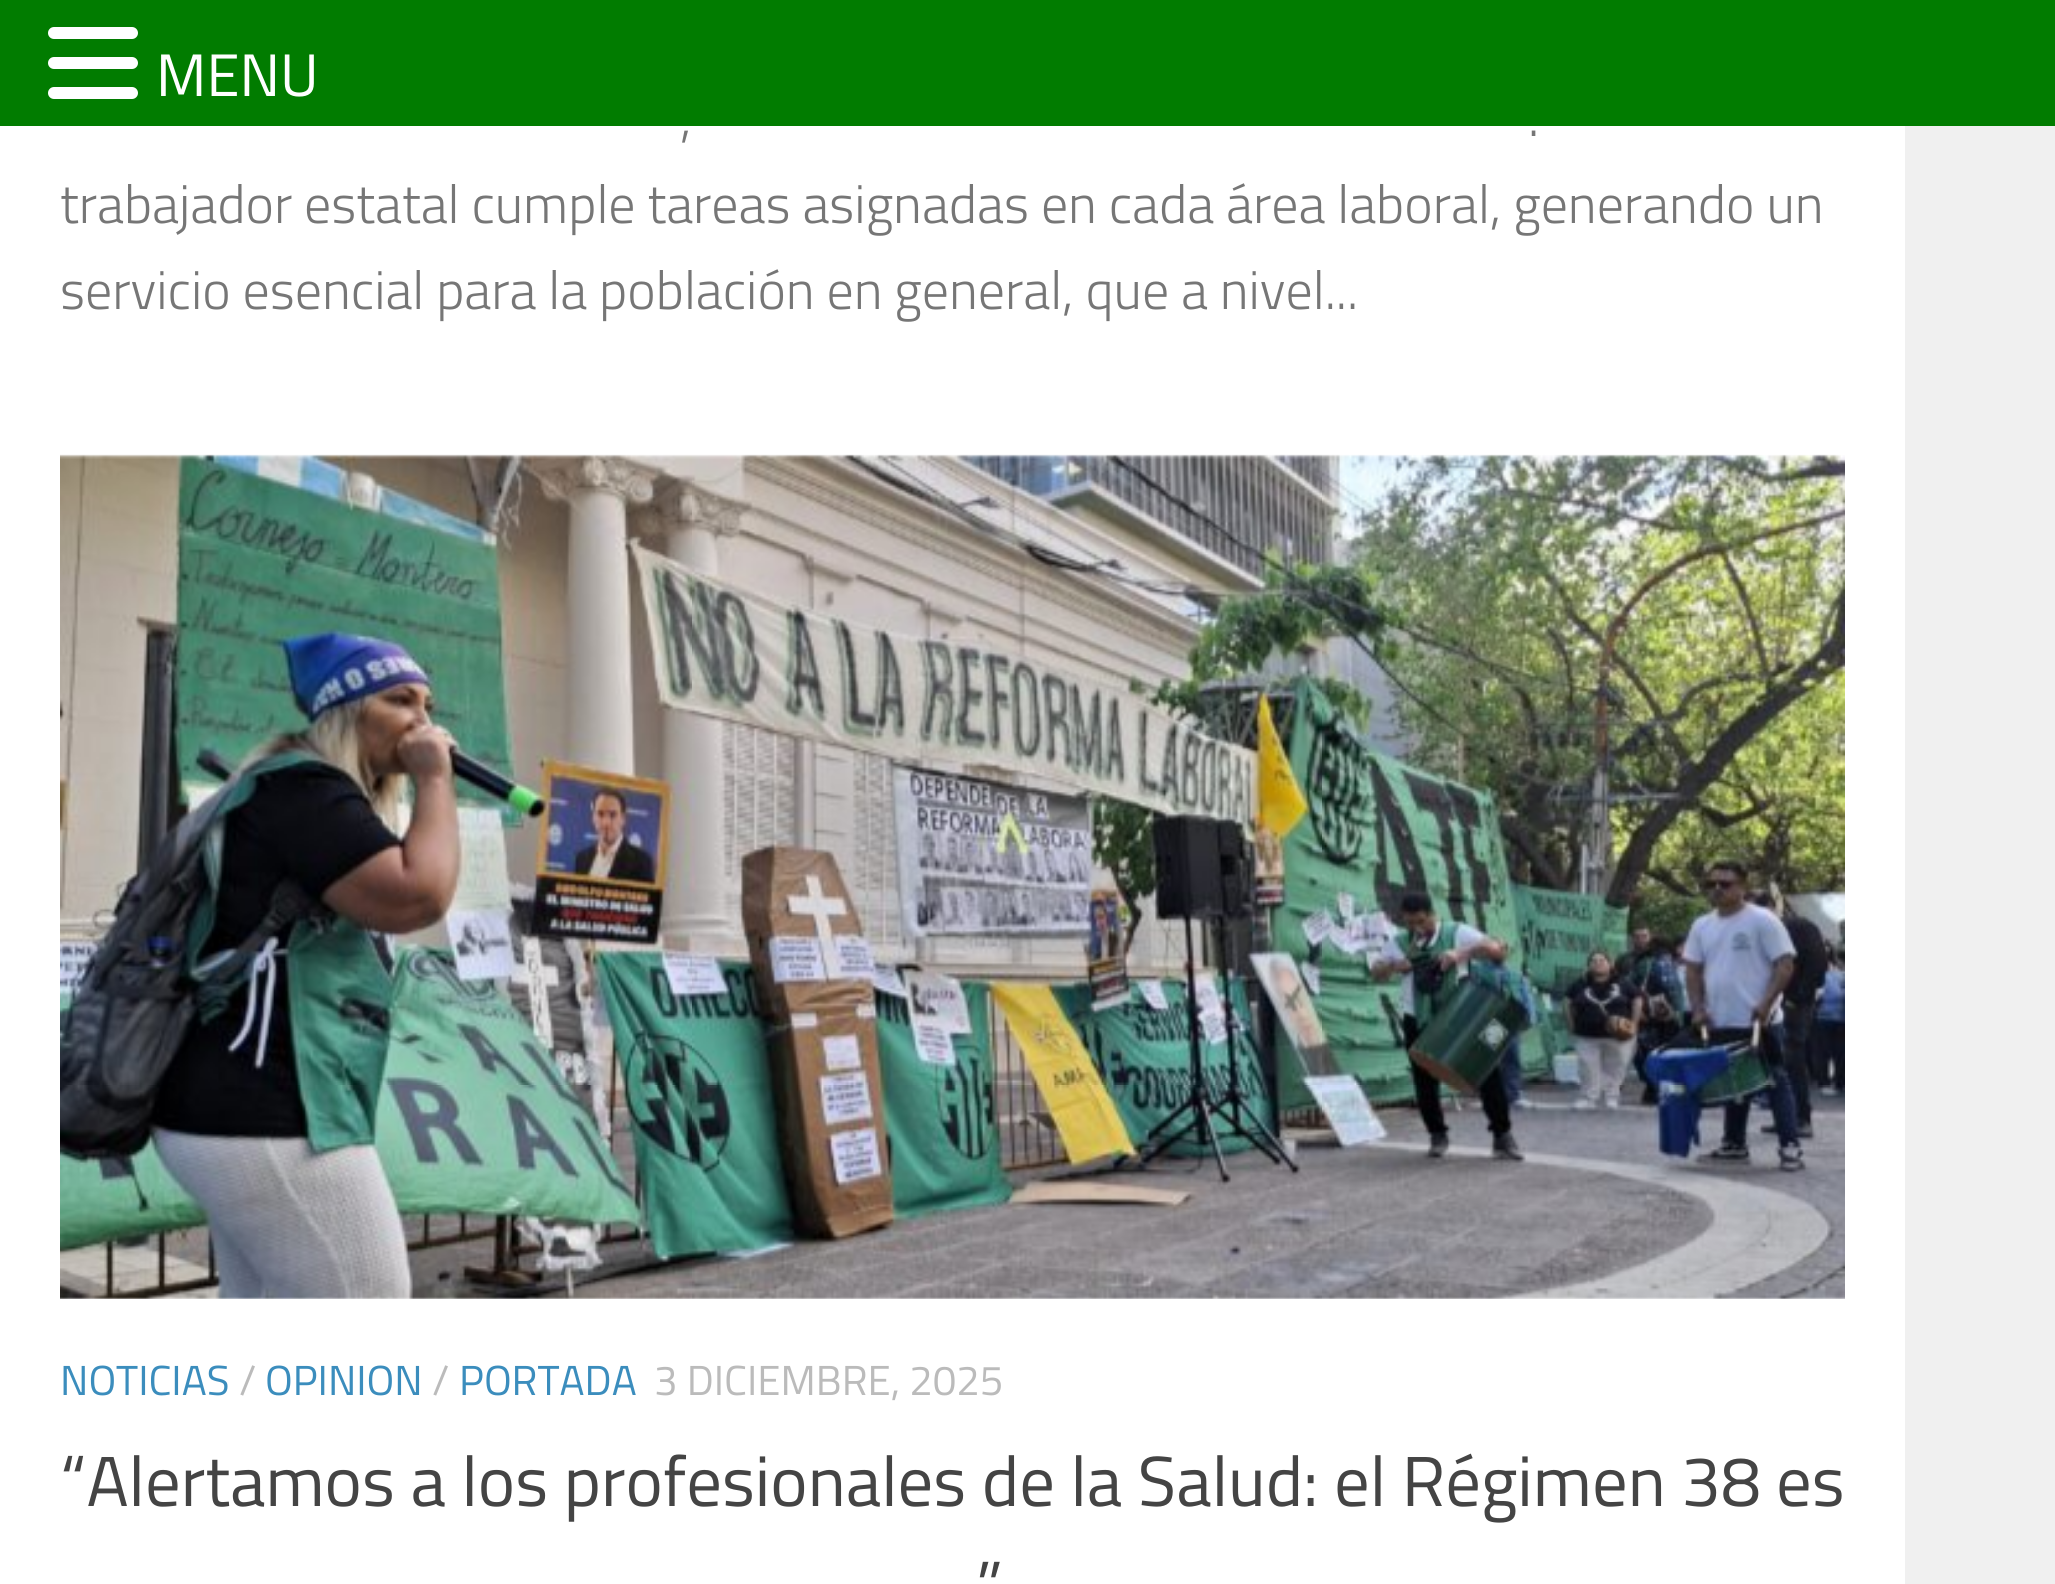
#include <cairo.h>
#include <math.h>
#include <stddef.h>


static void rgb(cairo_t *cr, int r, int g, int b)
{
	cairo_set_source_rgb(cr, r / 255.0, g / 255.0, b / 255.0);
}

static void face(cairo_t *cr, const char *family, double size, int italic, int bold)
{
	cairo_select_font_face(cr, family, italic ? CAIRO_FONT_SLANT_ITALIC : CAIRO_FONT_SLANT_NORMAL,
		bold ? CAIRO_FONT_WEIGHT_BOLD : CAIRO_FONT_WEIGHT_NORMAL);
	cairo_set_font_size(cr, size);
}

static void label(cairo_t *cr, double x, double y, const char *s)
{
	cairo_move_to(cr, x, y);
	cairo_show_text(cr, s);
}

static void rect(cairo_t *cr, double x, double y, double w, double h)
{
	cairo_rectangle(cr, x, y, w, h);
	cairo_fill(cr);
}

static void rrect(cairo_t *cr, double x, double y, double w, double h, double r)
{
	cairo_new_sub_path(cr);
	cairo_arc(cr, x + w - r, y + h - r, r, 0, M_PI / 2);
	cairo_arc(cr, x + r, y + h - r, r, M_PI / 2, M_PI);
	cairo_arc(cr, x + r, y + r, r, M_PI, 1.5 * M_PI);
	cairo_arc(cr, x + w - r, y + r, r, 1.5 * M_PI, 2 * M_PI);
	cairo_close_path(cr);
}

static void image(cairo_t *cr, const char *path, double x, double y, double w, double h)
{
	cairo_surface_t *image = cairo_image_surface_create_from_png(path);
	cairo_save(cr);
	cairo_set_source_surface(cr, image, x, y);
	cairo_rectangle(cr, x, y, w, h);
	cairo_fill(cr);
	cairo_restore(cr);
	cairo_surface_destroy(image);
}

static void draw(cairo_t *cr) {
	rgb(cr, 255, 255, 255);
	cairo_paint(cr);
	rgb(cr, 1, 124, 0);
	rect(cr, 0, 0, 2055, 126);
	rgb(cr, 255, 255, 255);
	rrect(cr, 48, 27, 90, 12, 6);
	cairo_fill(cr);
	rrect(cr, 48, 57, 90, 12, 6);
	cairo_fill(cr);
	rrect(cr, 48, 87, 90, 12, 6);
	cairo_fill(cr);
	face(cr, "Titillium", 60, 0, 0);
	label(cr, 156, 96, "MENU");
	face(cr, "Titillium Light", 54, 0, 0);
	rgb(cr, 118, 118, 118);
	label(cr, 680, 136, ",");
	label(cr, 1528, 136, ".");
	label(cr, 60, 223, "trabajador estatal cumple tareas asignadas en cada área laboral, generando un");
	label(cr, 60, 309, "servicio esencial para la población en general, que a nivel...");
	image(cr, "image0.png", 60, 454, 1785, 845);
	face(cr, "Titillium", 42, 0, 0);
	rgb(cr, 59, 141, 189);
	label(cr, 60, 1395, "NOTICIAS");
	rgb(cr, 187, 187, 187);
	label(cr, 239, 1395, "/");
	rgb(cr, 59, 141, 189);
	label(cr, 265, 1395, "OPINION");
	rgb(cr, 187, 187, 187);
	label(cr, 432, 1395, "/");
	rgb(cr, 59, 141, 189);
	label(cr, 459, 1395, "PORTADA");
	rgb(cr, 187, 187, 187);
	label(cr, 654, 1395, "3 DICIEMBRE, 2025");
	face(cr, "Titillium", 70.8, 0, 0);
	rgb(cr, 68, 68, 68);
	label(cr, 60, 1506, "“Alertamos a los profesionales de la Salud: el Régimen 38 es");
	label(cr, 976, 1612, "”");
	rgb(cr, 240, 240, 240);
	rect(cr, 1905, 126, 150, 1458);
}

int main(void) {
	cairo_surface_t *surface = cairo_image_surface_create(CAIRO_FORMAT_RGB24, 2055, 1584);
	cairo_t *cr = cairo_create(surface);
	cairo_font_options_t *options = cairo_font_options_create();
	cairo_font_options_set_hint_metrics(options, CAIRO_HINT_METRICS_OFF);
	cairo_font_options_set_hint_style(options, CAIRO_HINT_STYLE_NONE);
	cairo_set_font_options(cr, options);
	cairo_set_miter_limit(cr, 4);
	draw(cr);
	cairo_surface_write_to_png(surface, "render.png");
	cairo_font_options_destroy(options);
	cairo_destroy(cr);
	cairo_surface_destroy(surface);
	return 0;
}
